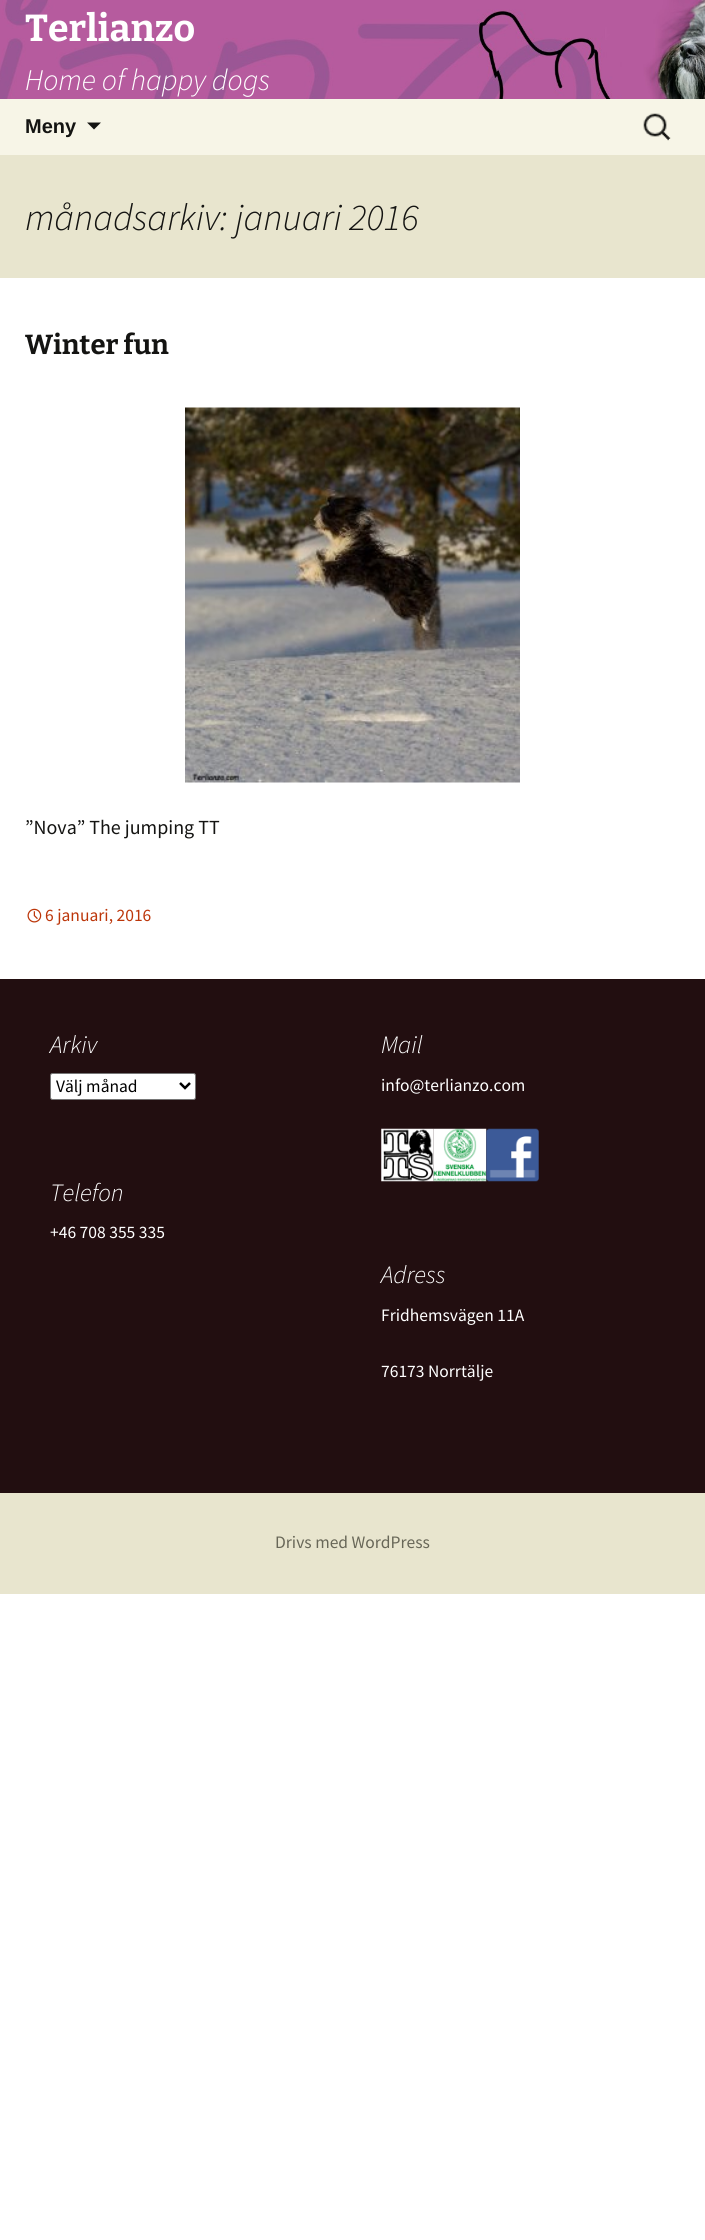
#include <cairo.h>
#include <math.h>
#include <stddef.h>


static void rgb(cairo_t *cr, int r, int g, int b)
{
	cairo_set_source_rgb(cr, r / 255.0, g / 255.0, b / 255.0);
}

static void face(cairo_t *cr, const char *family, double size, int italic, int bold)
{
	cairo_select_font_face(cr, family, italic ? CAIRO_FONT_SLANT_ITALIC : CAIRO_FONT_SLANT_NORMAL,
		bold ? CAIRO_FONT_WEIGHT_BOLD : CAIRO_FONT_WEIGHT_NORMAL);
	cairo_set_font_size(cr, size);
}

static void label(cairo_t *cr, double x, double y, const char *s)
{
	cairo_move_to(cr, x, y);
	cairo_show_text(cr, s);
}

static void rect(cairo_t *cr, double x, double y, double w, double h)
{
	cairo_rectangle(cr, x, y, w, h);
	cairo_fill(cr);
}

static void rrect(cairo_t *cr, double x, double y, double w, double h, double r)
{
	cairo_new_sub_path(cr);
	cairo_arc(cr, x + w - r, y + h - r, r, 0, M_PI / 2);
	cairo_arc(cr, x + r, y + h - r, r, M_PI / 2, M_PI);
	cairo_arc(cr, x + r, y + r, r, M_PI, 1.5 * M_PI);
	cairo_arc(cr, x + w - r, y + r, r, 1.5 * M_PI, 2 * M_PI);
	cairo_close_path(cr);
}

static void image(cairo_t *cr, const char *path, double x, double y, double w, double h)
{
	cairo_surface_t *image = cairo_image_surface_create_from_png(path);
	cairo_save(cr);
	cairo_set_source_surface(cr, image, x, y);
	cairo_rectangle(cr, x, y, w, h);
	cairo_fill(cr);
	cairo_restore(cr);
	cairo_surface_destroy(image);
}

static void draw(cairo_t *cr) {
	rgb(cr, 255, 255, 255);
	cairo_paint(cr);
	image(cr, "image0.png", 0, 0, 705, 99);
	face(cr, "Bitter Thin", 37.5, 0, 0);
	rgb(cr, 255, 255, 255);
	label(cr, 25, 41, "Terlianzo");
	face(cr, "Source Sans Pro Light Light", 30, 1, 0);
	label(cr, 25, 90, "Home of happy dogs");
	rgb(cr, 247, 245, 231);
	rect(cr, 0, 99, 705, 56);
	face(cr, "Liberation Sans", 20, 0, 1);
	rgb(cr, 20, 20, 18);
	label(cr, 25, 133, "Meny");
	cairo_new_path(cr);
	cairo_move_to(cr, 87, 122.5);
	cairo_line_to(cr, 94, 129.5);
	cairo_line_to(cr, 101, 122.5);
	cairo_close_path(cr);
	cairo_fill(cr);
	image(cr, "image1.png", 643, 113, 28, 28);
	rgb(cr, 232, 229, 206);
	rect(cr, 0, 155, 705, 123);
	face(cr, "Source Sans Pro Light Light", 37.5, 1, 0);
	rgb(cr, 20, 20, 18);
	label(cr, 25, 230, "månadsarkiv: januari 2016");
	face(cr, "Bitter Thin", 27.5, 0, 0);
	label(cr, 25, 354, "Winter fun");
	image(cr, "image2.png", 185, 407, 335, 376);
	face(cr, "Source Sans Pro", 20, 0, 0);
	label(cr, 25, 834, "”Nova” The jumping TT");
	image(cr, "image3.png", 27, 908, 15, 15);
	face(cr, "Source Sans Pro", 17.5, 0, 0);
	rgb(cr, 188, 54, 10);
	label(cr, 45, 921, "6 januari, 2016");
	rgb(cr, 232, 229, 206);
	rect(cr, 0, 1493, 705, 101);
	rgb(cr, 34, 14, 16);
	rect(cr, 0, 979, 705, 514);
	face(cr, "Source Sans Pro Light Light", 25, 1, 0);
	rgb(cr, 255, 255, 255);
	label(cr, 50, 1053, "Arkiv");
	rrect(cr, 50.5, 1073.5, 145, 26, 2);
	cairo_fill_preserve(cr);
	rgb(cr, 118, 118, 118);
	cairo_set_line_width(cr, 1);
	cairo_stroke(cr);
	cairo_new_path(cr);
	cairo_move_to(cr, 180, 1083);
	cairo_line_to(cr, 185, 1088);
	cairo_line_to(cr, 190, 1083);
	rgb(cr, 0, 0, 0);
	cairo_set_line_width(cr, 2.5);
	cairo_stroke(cr);
	face(cr, "Source Sans Pro", 17.5, 0, 0);
	label(cr, 56, 1092, "Välj månad");
	face(cr, "Source Sans Pro Light Light", 25, 1, 0);
	rgb(cr, 255, 255, 255);
	label(cr, 381, 1053, "Mail");
	face(cr, "Source Sans Pro", 17.5, 0, 0);
	label(cr, 381, 1091, "info@terlianzo.com");
	image(cr, "image4.png", 381, 1128, 53, 54);
	image(cr, "image5.png", 433, 1128, 54, 54);
	image(cr, "image6.png", 486, 1128, 53, 54);
	face(cr, "Source Sans Pro Light Light", 25, 1, 0);
	label(cr, 50, 1201, "Telefon");
	face(cr, "Source Sans Pro", 17.5, 0, 0);
	label(cr, 50, 1238, "+46 708 355 335");
	face(cr, "Source Sans Pro Light Light", 25, 1, 0);
	label(cr, 381, 1283, "Adress");
	face(cr, "Source Sans Pro", 17.5, 0, 0);
	label(cr, 381, 1321, "Fridhemsvägen 11A");
	label(cr, 381, 1377, "76173 Norrtälje");
	rgb(cr, 104, 103, 88);
	label(cr, 275, 1548, "Drivs med WordPress");
}

int main(void) {
	cairo_surface_t *surface = cairo_image_surface_create(CAIRO_FORMAT_RGB24, 705, 2240);
	cairo_t *cr = cairo_create(surface);
	cairo_font_options_t *options = cairo_font_options_create();
	cairo_font_options_set_hint_metrics(options, CAIRO_HINT_METRICS_OFF);
	cairo_font_options_set_hint_style(options, CAIRO_HINT_STYLE_NONE);
	cairo_set_font_options(cr, options);
	cairo_set_miter_limit(cr, 4);
	draw(cr);
	cairo_surface_write_to_png(surface, "render.png");
	cairo_font_options_destroy(options);
	cairo_destroy(cr);
	cairo_surface_destroy(surface);
	return 0;
}
